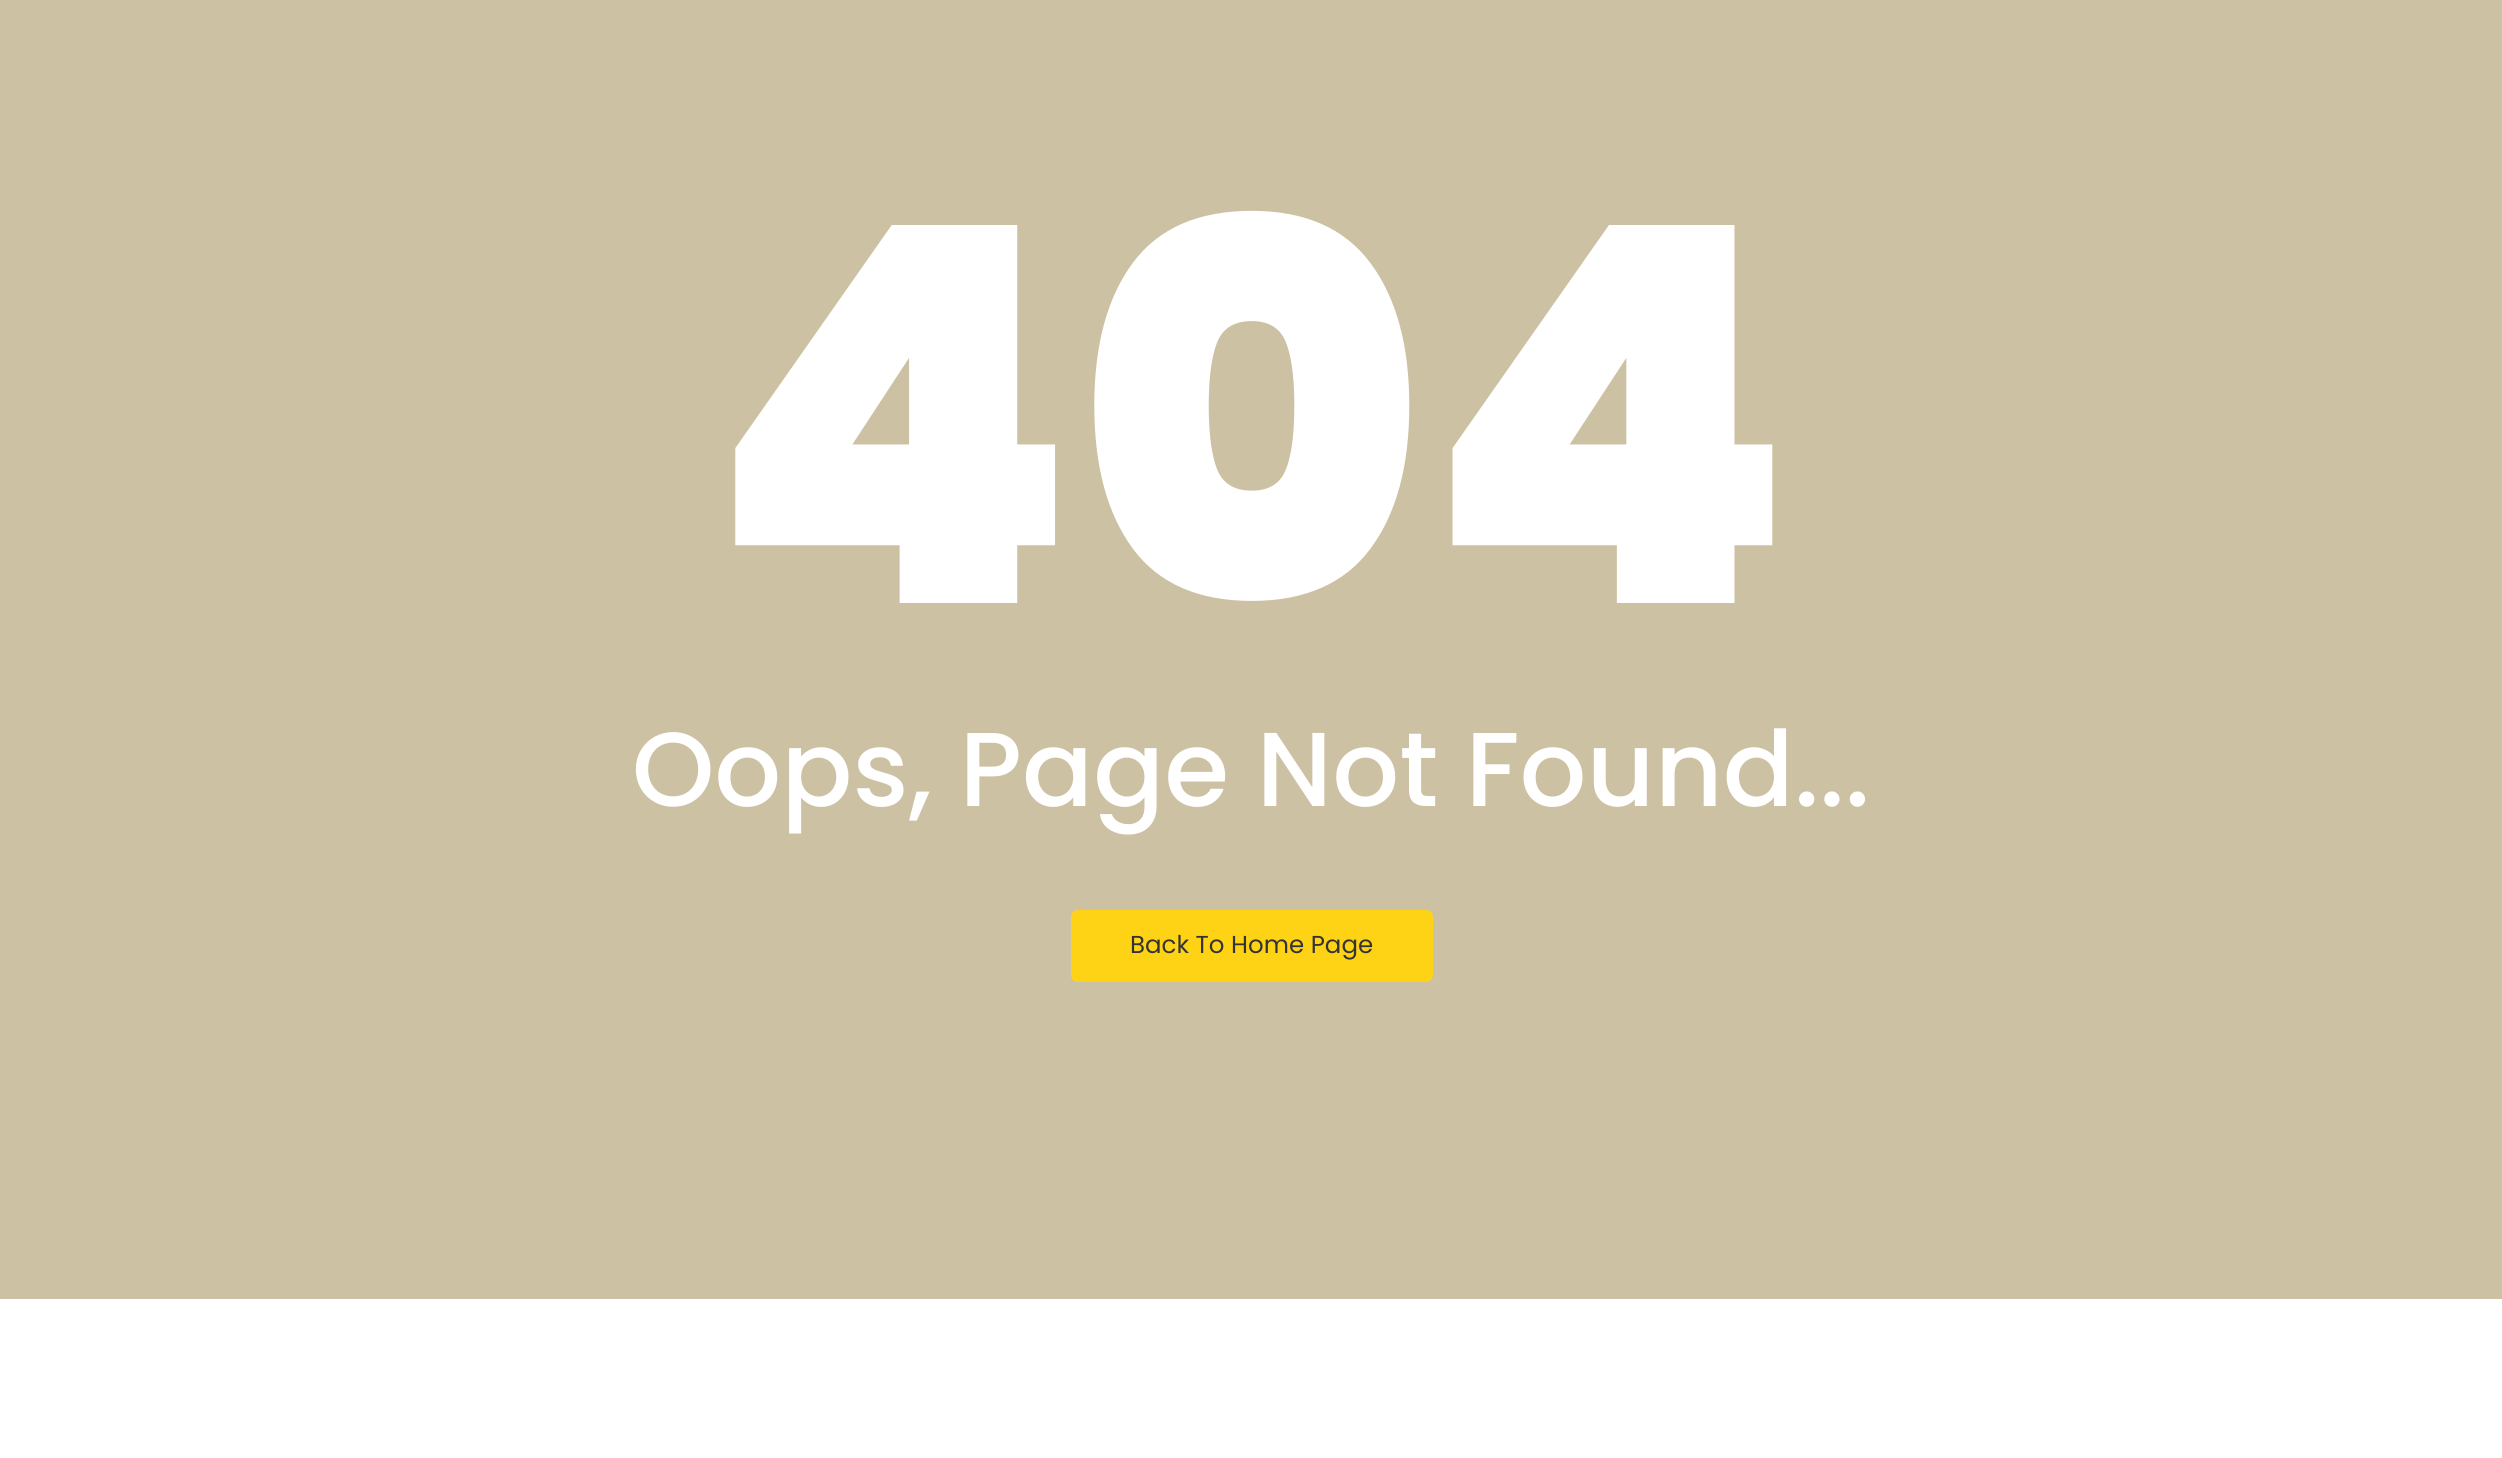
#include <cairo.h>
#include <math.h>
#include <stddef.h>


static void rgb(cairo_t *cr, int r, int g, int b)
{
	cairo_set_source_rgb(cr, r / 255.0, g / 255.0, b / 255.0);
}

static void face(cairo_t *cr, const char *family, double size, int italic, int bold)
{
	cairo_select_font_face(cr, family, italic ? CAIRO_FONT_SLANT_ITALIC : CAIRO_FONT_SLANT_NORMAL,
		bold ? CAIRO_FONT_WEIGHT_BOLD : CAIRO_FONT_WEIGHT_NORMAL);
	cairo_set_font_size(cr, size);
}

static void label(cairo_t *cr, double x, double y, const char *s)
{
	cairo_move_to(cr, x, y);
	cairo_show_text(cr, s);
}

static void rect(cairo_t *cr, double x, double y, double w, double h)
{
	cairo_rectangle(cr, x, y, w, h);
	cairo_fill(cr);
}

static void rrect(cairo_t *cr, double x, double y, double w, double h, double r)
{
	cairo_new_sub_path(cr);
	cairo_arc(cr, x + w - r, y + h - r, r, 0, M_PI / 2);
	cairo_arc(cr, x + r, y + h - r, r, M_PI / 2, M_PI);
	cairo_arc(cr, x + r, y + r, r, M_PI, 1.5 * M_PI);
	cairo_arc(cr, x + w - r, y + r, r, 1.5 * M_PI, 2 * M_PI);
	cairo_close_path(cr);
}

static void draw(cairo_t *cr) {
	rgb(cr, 255, 255, 255);
	cairo_paint(cr);
	rgb(cr, 205, 193, 163);
	rect(cr, 0, 0, 2502, 1299);
	face(cr, "Poppins Black", 525, 0, 0);
	rgb(cr, 255, 255, 255);
	label(cr, 708, 603, "404");
	face(cr, "Poppins Medium", 105, 0, 0);
	label(cr, 632, 806, "Oops, Page Not Found...");
	rgb(cr, 255, 211, 21);
	rrect(cr, 1071, 910, 362, 72, 7);
	cairo_fill(cr);
	face(cr, "Poppins", 24.5, 0, 0);
	rgb(cr, 51, 51, 51);
	label(cr, 1130, 953, "Back To Home Page");
}

int main(void) {
	cairo_surface_t *surface = cairo_image_surface_create(CAIRO_FORMAT_RGB24, 2502, 1458);
	cairo_t *cr = cairo_create(surface);
	cairo_font_options_t *options = cairo_font_options_create();
	cairo_font_options_set_hint_metrics(options, CAIRO_HINT_METRICS_OFF);
	cairo_font_options_set_hint_style(options, CAIRO_HINT_STYLE_NONE);
	cairo_set_font_options(cr, options);
	cairo_set_miter_limit(cr, 4);
	draw(cr);
	cairo_surface_write_to_png(surface, "render.png");
	cairo_font_options_destroy(options);
	cairo_destroy(cr);
	cairo_surface_destroy(surface);
	return 0;
}
